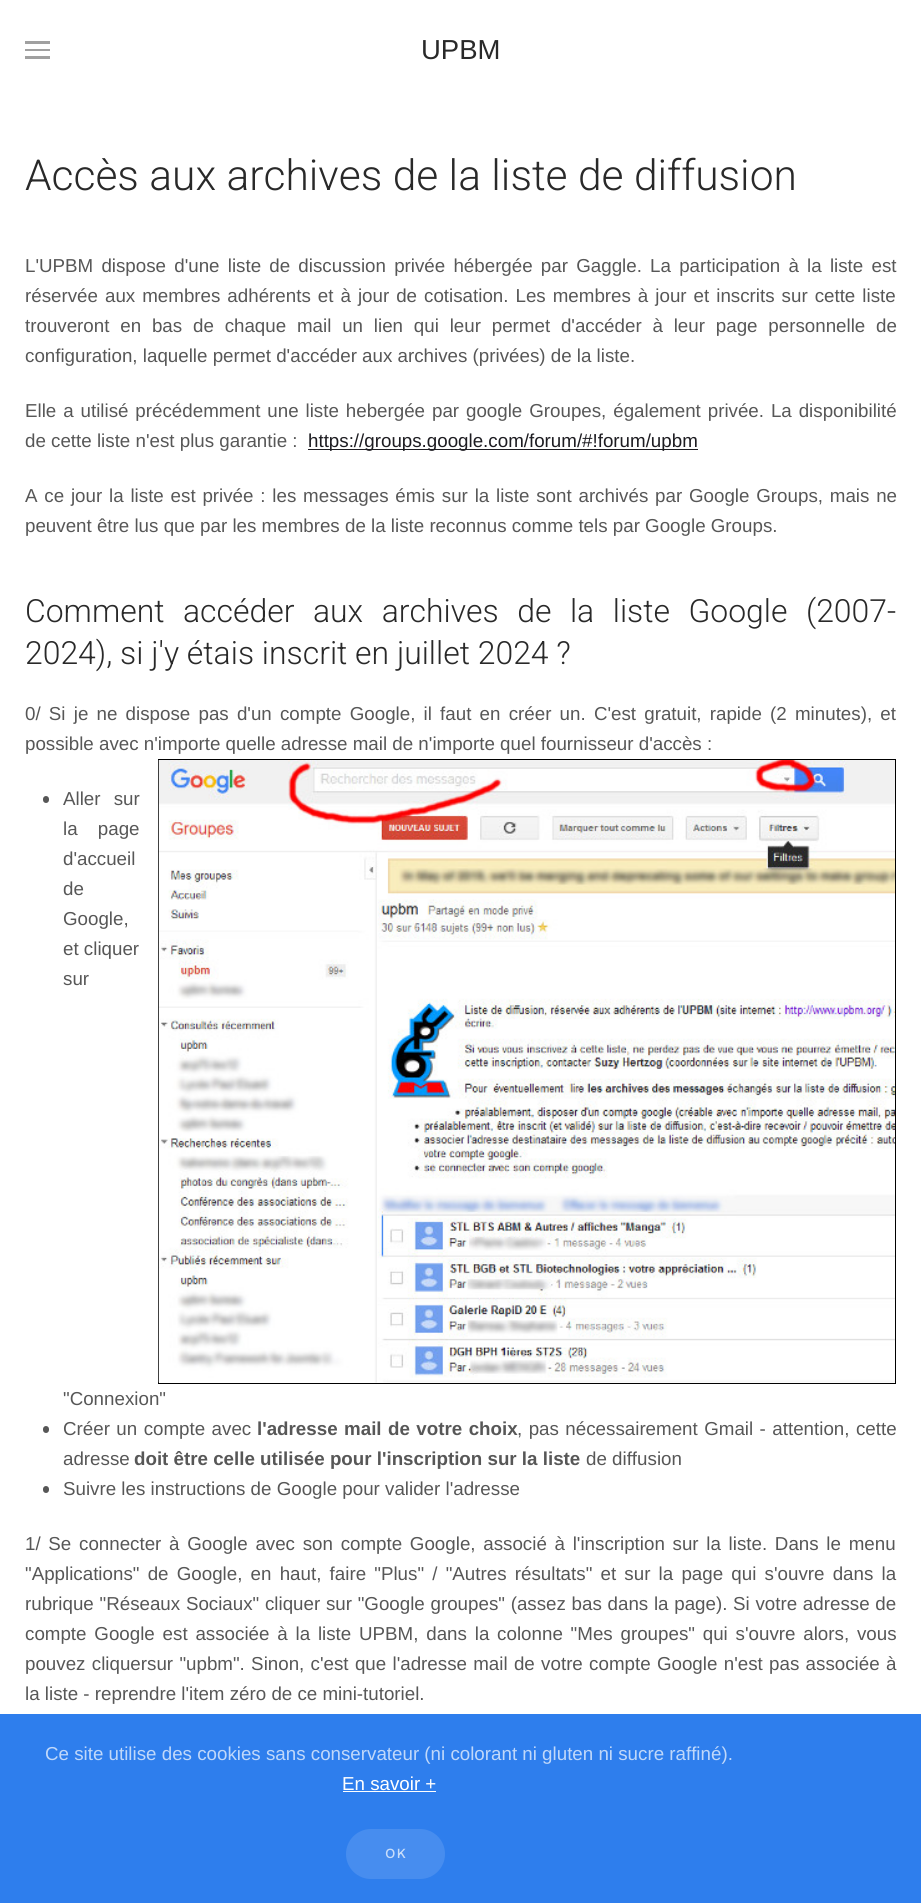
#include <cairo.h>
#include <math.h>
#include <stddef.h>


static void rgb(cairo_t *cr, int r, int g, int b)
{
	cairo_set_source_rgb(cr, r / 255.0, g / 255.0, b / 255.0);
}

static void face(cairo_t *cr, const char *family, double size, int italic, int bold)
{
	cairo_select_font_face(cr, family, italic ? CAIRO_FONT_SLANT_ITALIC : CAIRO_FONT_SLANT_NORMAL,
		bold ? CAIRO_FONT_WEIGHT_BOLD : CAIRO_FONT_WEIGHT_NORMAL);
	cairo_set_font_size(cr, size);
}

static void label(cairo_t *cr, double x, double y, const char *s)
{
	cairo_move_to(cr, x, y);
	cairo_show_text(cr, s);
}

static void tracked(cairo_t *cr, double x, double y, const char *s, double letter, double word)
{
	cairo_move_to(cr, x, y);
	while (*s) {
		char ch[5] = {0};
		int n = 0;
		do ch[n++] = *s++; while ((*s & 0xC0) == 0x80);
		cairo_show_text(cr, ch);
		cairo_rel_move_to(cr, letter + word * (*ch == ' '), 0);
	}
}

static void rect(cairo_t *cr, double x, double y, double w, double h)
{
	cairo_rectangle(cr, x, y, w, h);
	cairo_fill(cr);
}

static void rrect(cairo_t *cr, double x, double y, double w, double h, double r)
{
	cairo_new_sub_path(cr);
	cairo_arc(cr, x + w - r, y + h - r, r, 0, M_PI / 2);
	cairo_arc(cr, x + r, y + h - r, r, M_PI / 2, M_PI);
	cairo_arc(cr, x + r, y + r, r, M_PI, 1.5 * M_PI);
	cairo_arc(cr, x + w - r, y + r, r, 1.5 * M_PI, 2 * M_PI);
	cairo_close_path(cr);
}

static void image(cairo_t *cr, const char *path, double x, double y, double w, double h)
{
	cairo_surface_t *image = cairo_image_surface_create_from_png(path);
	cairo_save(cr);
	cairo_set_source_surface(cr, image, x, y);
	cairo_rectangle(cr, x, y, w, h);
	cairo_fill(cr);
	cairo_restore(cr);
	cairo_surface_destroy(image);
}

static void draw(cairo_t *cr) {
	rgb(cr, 255, 255, 255);
	cairo_paint(cr);
	rgb(cr, 160, 160, 160);
	rect(cr, 25, 41, 25, 3);
	rect(cr, 25, 49, 25, 2);
	rect(cr, 25, 56, 25, 3);
	face(cr, "Liberation Sans", 27.5, 0, 0);
	rgb(cr, 41, 41, 41);
	label(cr, 421, 59, "UPBM");
	face(cr, "Roboto Light", 42.5, 0, 0);
	label(cr, 25, 190, "Accès aux archives de la liste de diffusion");
	face(cr, "Liberation Sans", 18.75, 0, 0);
	rgb(cr, 87, 87, 87);
	tracked(cr, 25, 272, "L'UPBM dispose d'une liste de discussion privée hébergée par Gaggle. La participation à la liste est", 0, 3);
	tracked(cr, 25, 302, "réservée aux membres adhérents et à jour de cotisation. Les membres à jour et inscrits sur cette liste", 0, 1.8);
	tracked(cr, 25, 332, "trouveront en bas de chaque mail un lien qui leur permet d'accéder à leur page personnelle de", 0, 5.6);
	label(cr, 25, 362, "configuration, laquelle permet d'accéder aux archives (privées) de la liste.");
	tracked(cr, 25, 417, "Elle a utilisé précédemment une liste hebergée par google Groupes, également privée. La disponibilité", 0, 1.7);
	label(cr, 25, 447, "de cette liste n'est plus garantie :");
	rgb(cr, 29, 28, 33);
	rect(cr, 308, 449, 390, 1);
	label(cr, 308, 447, "https://groups.google.com/forum/#!forum/upbm");
	rgb(cr, 87, 87, 87);
	tracked(cr, 25, 502, "A ce jour la liste est privée : les messages émis sur la liste sont archivés par Google Groups, mais ne", 0, 1.6);
	label(cr, 25, 532, "peuvent être lus que par les membres de la liste reconnus comme tels par Google Groups.");
	face(cr, "Roboto Light", 31.9, 0, 0);
	rgb(cr, 41, 41, 41);
	tracked(cr, 25, 622, "Comment accéder aux archives de la liste Google (2007-", 0, 10.75);
	label(cr, 25, 664, "2024), si j'y étais inscrit en juillet 2024 ?");
	face(cr, "Liberation Sans", 18.75, 0, 0);
	rgb(cr, 87, 87, 87);
	tracked(cr, 25, 720, "0/ Si je ne dispose pas d'un compte Google, il faut en créer un. C'est gratuit, rapide (2 minutes), et", 0, 3);
	label(cr, 25, 750, "possible avec n'importe quelle adresse mail de n'importe quel fournisseur d'accès :");
	cairo_rectangle(cr, 158.5, 759.5, 737, 624);
	rgb(cr, 0, 0, 0);
	cairo_set_line_width(cr, 1);
	cairo_stroke(cr);
	image(cr, "image0.png", 158, 760, 737, 623);
	rgb(cr, 87, 87, 87);
	rrect(cr, 43, 796, 6, 7, 3);
	cairo_fill(cr);
	tracked(cr, 63, 805, "Aller sur", 0, 8);
	tracked(cr, 63, 835, "la page", 0, 15);
	label(cr, 63, 865, "d'accueil");
	label(cr, 63, 895, "de");
	label(cr, 63, 925, "Google,");
	label(cr, 63, 955, "et cliquer");
	label(cr, 63, 985, "sur");
	label(cr, 63, 1405, "\"Connexion\"");
	rrect(cr, 43, 1426, 6, 7, 3);
	cairo_fill(cr);
	tracked(cr, 63, 1435, "Créer un compte avec", 0, 1.25);
	face(cr, "Liberation Sans", 18.75, 0, 1);
	tracked(cr, 257, 1435, "l'adresse mail de votre choix", 0, 1.25);
	face(cr, "Liberation Sans", 18.75, 0, 0);
	tracked(cr, 517, 1435, ", pas nécessairement Gmail - attention, cette", 0, 1.25);
	label(cr, 63, 1465, "adresse");
	face(cr, "Liberation Sans", 18.75, 0, 1);
	label(cr, 134, 1465, "doit être celle utilisée pour l'inscription sur la liste");
	face(cr, "Liberation Sans", 18.75, 0, 0);
	label(cr, 586, 1465, "de diffusion");
	rrect(cr, 43, 1486, 6, 7, 3);
	cairo_fill(cr);
	label(cr, 63, 1495, "Suivre les instructions de Google pour valider l'adresse");
	tracked(cr, 25, 1550, "1/ Se connecter à Google avec son compte Google, associé à l'inscription sur la liste. Dans le menu", 0, 2.5);
	tracked(cr, 25, 1580, "\"Applications\" de Google, en haut, faire \"Plus\" / \"Autres résultats\" et sur la page qui s'ouvre dans la", 0, 3);
	tracked(cr, 25, 1610, "rubrique \"Réseaux Sociaux\" cliquer sur \"Google groupes\" (assez bas dans la page). Si votre adresse de", 0, 0.5);
	tracked(cr, 25, 1640, "compte Google est associée à la liste UPBM, dans la colonne \"Mes groupes\" qui s'ouvre alors, vous", 0, 2.6);
	tracked(cr, 25, 1670, "pouvez cliquersur \"upbm\". Sinon, c'est que l'adresse mail de votre compte Google n'est pas associée à", 0, 1.1);
	label(cr, 25, 1700, "la liste - reprendre l'item zéro de ce mini-tutoriel.");
	rgb(cr, 46, 126, 237);
	rect(cr, 0, 1714, 921, 189);
	rgb(cr, 192, 216, 250);
	label(cr, 45, 1760, "Ce site utilise des cookies sans conservateur (ni colorant ni gluten ni sucre raffiné).");
	rgb(cr, 255, 255, 255);
	label(cr, 342, 1790, "En savoir +");
	rect(cr, 343, 1791, 93, 1);
	rgb(cr, 71, 141, 239);
	rrect(cr, 346, 1829, 99, 50, 25);
	cairo_fill(cr);
	face(cr, "Work Sans Medium", 14, 0, 0);
	rgb(cr, 200, 221, 250);
	tracked(cr, 385, 1858, "OK", 1, 0);
}

int main(void) {
	cairo_surface_t *surface = cairo_image_surface_create(CAIRO_FORMAT_RGB24, 921, 1903);
	cairo_t *cr = cairo_create(surface);
	cairo_font_options_t *options = cairo_font_options_create();
	cairo_font_options_set_hint_metrics(options, CAIRO_HINT_METRICS_OFF);
	cairo_font_options_set_hint_style(options, CAIRO_HINT_STYLE_NONE);
	cairo_set_font_options(cr, options);
	cairo_set_miter_limit(cr, 4);
	draw(cr);
	cairo_surface_write_to_png(surface, "render.png");
	cairo_font_options_destroy(options);
	cairo_destroy(cr);
	cairo_surface_destroy(surface);
	return 0;
}
